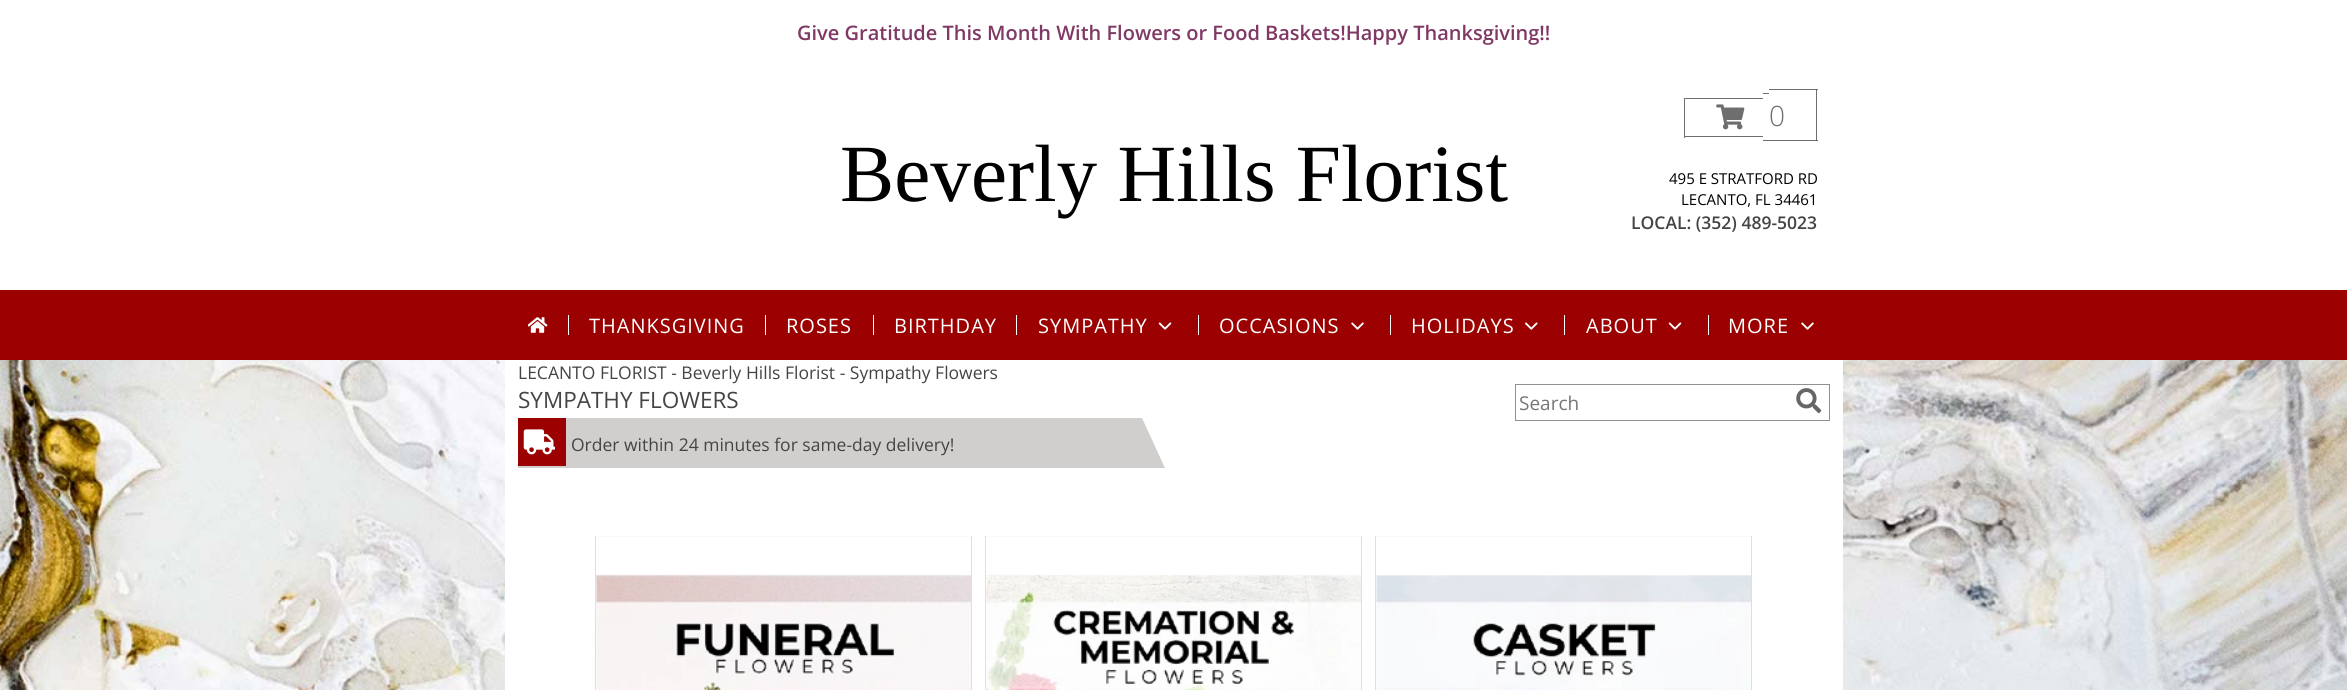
#include <cairo.h>
#include <math.h>
#include <stddef.h>


static void rgb(cairo_t *cr, int r, int g, int b)
{
	cairo_set_source_rgb(cr, r / 255.0, g / 255.0, b / 255.0);
}

static void face(cairo_t *cr, const char *family, double size, int italic, int bold)
{
	cairo_select_font_face(cr, family, italic ? CAIRO_FONT_SLANT_ITALIC : CAIRO_FONT_SLANT_NORMAL,
		bold ? CAIRO_FONT_WEIGHT_BOLD : CAIRO_FONT_WEIGHT_NORMAL);
	cairo_set_font_size(cr, size);
}

static void label(cairo_t *cr, double x, double y, const char *s)
{
	cairo_move_to(cr, x, y);
	cairo_show_text(cr, s);
}

static void tracked(cairo_t *cr, double x, double y, const char *s, double letter, double word)
{
	cairo_move_to(cr, x, y);
	while (*s) {
		char ch[5] = {0};
		int n = 0;
		do ch[n++] = *s++; while ((*s & 0xC0) == 0x80);
		cairo_show_text(cr, ch);
		cairo_rel_move_to(cr, letter + word * (*ch == ' '), 0);
	}
}

static void rect(cairo_t *cr, double x, double y, double w, double h)
{
	cairo_rectangle(cr, x, y, w, h);
	cairo_fill(cr);
}

static void image(cairo_t *cr, const char *path, double x, double y, double w, double h)
{
	cairo_surface_t *image = cairo_image_surface_create_from_png(path);
	cairo_save(cr);
	cairo_set_source_surface(cr, image, x, y);
	cairo_rectangle(cr, x, y, w, h);
	cairo_fill(cr);
	cairo_restore(cr);
	cairo_surface_destroy(image);
}

static void draw(cairo_t *cr) {
	rgb(cr, 255, 255, 255);
	cairo_paint(cr);
	image(cr, "image0.png", 0, 360, 2347, 330);
	rgb(cr, 255, 255, 255);
	rect(cr, 505, 360, 1338, 330);
	face(cr, "Open Sans SemiBold", 20, 0, 0);
	rgb(cr, 128, 57, 101);
	label(cr, 797, 40, "Give Gratitude This Month With Flowers or Food Baskets!Happy Thanksgiving!!");
	face(cr, "Liberation Serif", 81.25, 0, 0);
	rgb(cr, 0, 0, 0);
	label(cr, 840, 201, "Beverly Hills Florist");
	rgb(cr, 110, 110, 110);
	rect(cr, 1684, 98, 79, 1);
	rect(cr, 1684, 136, 79, 1);
	rect(cr, 1684, 98, 1, 40);
	rect(cr, 1763, 93, 6, 1);
	rect(cr, 1763, 140, 6, 1);
	rect(cr, 1769, 89, 49, 1);
	rect(cr, 1816, 89, 1, 52);
	rect(cr, 1769, 140, 49, 1);
	image(cr, "image1.png", 1716, 104, 29, 26);
	face(cr, "Open Sans Light", 28, 0, 0);
	label(cr, 1769, 126, "0");
	face(cr, "Open Sans", 15, 0, 0);
	rgb(cr, 0, 0, 0);
	label(cr, 1669, 184, "495 E STRATFORD RD");
	label(cr, 1681, 205, "LECANTO, FL 34461");
	face(cr, "Open Sans SemiBold", 17.5, 0, 0);
	rgb(cr, 68, 68, 68);
	label(cr, 1631, 229, "LOCAL: (352) 489-5023");
	rgb(cr, 155, 1, 1);
	rect(cr, 0, 290, 2347, 70);
	image(cr, "image2.png", 528, 317, 20, 16);
	rgb(cr, 255, 255, 255);
	rect(cr, 568, 315, 1, 20);
	face(cr, "Open Sans", 20, 0, 0);
	tracked(cr, 589, 333, "THANKSGIVING", 1, 0);
	rect(cr, 765, 315, 1, 20);
	tracked(cr, 786, 333, "ROSES", 1, 0);
	rect(cr, 873, 315, 1, 20);
	tracked(cr, 894, 333, "BIRTHDAY", 1, 0);
	rect(cr, 1016, 315, 1, 20);
	tracked(cr, 1038, 333, "SYMPATHY", 1, 0);
	image(cr, "image3.png", 1158, 322, 14, 8);
	rect(cr, 1198, 315, 1, 20);
	tracked(cr, 1219, 333, "OCCASIONS", 1, 0);
	image(cr, "image4.png", 1351, 322, 13, 8);
	rect(cr, 1390, 315, 1, 20);
	tracked(cr, 1411, 333, "HOLIDAYS", 1, 0);
	image(cr, "image5.png", 1525, 322, 13, 8);
	rect(cr, 1564, 315, 1, 20);
	tracked(cr, 1586, 333, "ABOUT", 1, 0);
	image(cr, "image3.png", 1668, 322, 14, 8);
	rect(cr, 1708, 315, 1, 20);
	tracked(cr, 1728, 333, "MORE", 1, 0);
	image(cr, "image4.png", 1801, 322, 13, 8);
	face(cr, "Open Sans", 17.5, 0, 0);
	rgb(cr, 68, 68, 68);
	label(cr, 518, 379, "LECANTO FLORIST - Beverly Hills Florist - Sympathy Flowers");
	face(cr, "Open Sans", 22.5, 0, 0);
	label(cr, 518, 408, "SYMPATHY FLOWERS");
	cairo_rectangle(cr, 1515.5, 384.5, 314, 36);
	rgb(cr, 145, 145, 145);
	cairo_set_line_width(cr, 1);
	cairo_stroke(cr);
	face(cr, "Open Sans", 19, 0, 0);
	rgb(cr, 117, 117, 117);
	label(cr, 1519, 410, "Search");
	image(cr, "image6.png", 1796, 388, 26, 26);
	rgb(cr, 208, 207, 205);
	cairo_new_path(cr);
	cairo_move_to(cr, 1165, 468);
	cairo_line_to(cr, 518, 468);
	cairo_line_to(cr, 518, 418);
	cairo_line_to(cr, 1142, 418);
	cairo_close_path(cr);
	cairo_fill(cr);
	rgb(cr, 155, 1, 1);
	rect(cr, 518, 418, 48, 48);
	image(cr, "image7.png", 523, 429, 32, 26);
	face(cr, "Open Sans", 17.5, 0, 0);
	rgb(cr, 68, 68, 68);
	label(cr, 571, 451, "Order within 24 minutes for same-day delivery!");
	rgb(cr, 249, 249, 249);
	rect(cr, 595, 536, 378, 1);
	rgb(cr, 226, 222, 221);
	rect(cr, 971, 536, 1, 154);
	rect(cr, 595, 536, 1, 154);
	image(cr, "image8.png", 596, 574, 375, 116);
	rgb(cr, 249, 249, 249);
	rect(cr, 985, 536, 378, 1);
	rgb(cr, 226, 222, 221);
	rect(cr, 1361, 536, 1, 154);
	rect(cr, 985, 536, 1, 154);
	image(cr, "image9.png", 986, 573, 375, 117);
	rgb(cr, 249, 249, 249);
	rect(cr, 1375, 536, 378, 1);
	rgb(cr, 226, 222, 221);
	rect(cr, 1751, 536, 1, 154);
	rect(cr, 1375, 536, 1, 154);
	image(cr, "image10.png", 1376, 575, 375, 115);
}

int main(void) {
	cairo_surface_t *surface = cairo_image_surface_create(CAIRO_FORMAT_RGB24, 2347, 690);
	cairo_t *cr = cairo_create(surface);
	cairo_font_options_t *options = cairo_font_options_create();
	cairo_font_options_set_hint_metrics(options, CAIRO_HINT_METRICS_OFF);
	cairo_font_options_set_hint_style(options, CAIRO_HINT_STYLE_NONE);
	cairo_set_font_options(cr, options);
	cairo_set_miter_limit(cr, 4);
	draw(cr);
	cairo_surface_write_to_png(surface, "render.png");
	cairo_font_options_destroy(options);
	cairo_destroy(cr);
	cairo_surface_destroy(surface);
	return 0;
}
